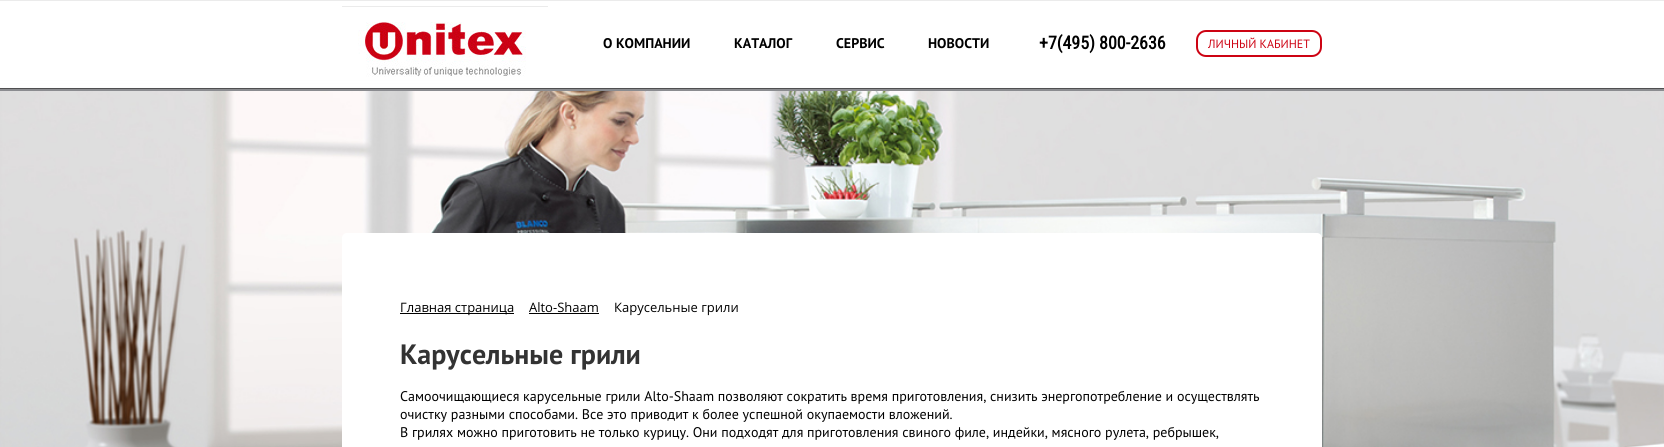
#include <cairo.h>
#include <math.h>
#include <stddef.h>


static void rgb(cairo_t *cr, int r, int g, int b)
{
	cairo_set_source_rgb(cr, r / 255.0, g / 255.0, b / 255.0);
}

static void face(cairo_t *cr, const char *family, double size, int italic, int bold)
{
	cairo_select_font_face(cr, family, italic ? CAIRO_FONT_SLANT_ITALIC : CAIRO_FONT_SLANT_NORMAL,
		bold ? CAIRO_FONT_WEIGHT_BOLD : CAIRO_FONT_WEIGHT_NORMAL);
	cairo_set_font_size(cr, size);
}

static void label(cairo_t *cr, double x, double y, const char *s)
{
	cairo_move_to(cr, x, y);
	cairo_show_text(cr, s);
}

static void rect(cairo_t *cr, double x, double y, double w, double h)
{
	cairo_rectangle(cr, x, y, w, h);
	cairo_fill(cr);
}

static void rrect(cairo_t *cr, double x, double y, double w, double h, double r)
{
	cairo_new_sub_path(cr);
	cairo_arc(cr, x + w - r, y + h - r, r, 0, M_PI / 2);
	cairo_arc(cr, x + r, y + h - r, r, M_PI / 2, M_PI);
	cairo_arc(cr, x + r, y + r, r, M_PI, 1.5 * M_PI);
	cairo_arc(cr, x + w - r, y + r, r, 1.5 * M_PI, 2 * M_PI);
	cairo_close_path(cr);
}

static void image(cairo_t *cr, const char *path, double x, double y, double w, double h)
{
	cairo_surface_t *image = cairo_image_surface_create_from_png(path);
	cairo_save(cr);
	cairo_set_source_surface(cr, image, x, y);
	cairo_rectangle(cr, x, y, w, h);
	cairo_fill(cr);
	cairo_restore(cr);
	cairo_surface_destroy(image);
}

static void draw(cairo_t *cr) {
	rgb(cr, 255, 255, 255);
	cairo_paint(cr);
	image(cr, "image0.png", 0, 91, 1664, 356);
	image(cr, "image1.png", 0, 0, 1664, 91);
	image(cr, "image2.png", 342, 6, 206, 71);
	face(cr, "PT Sans", 14, 0, 1);
	rgb(cr, 0, 0, 0);
	label(cr, 603, 48, "О КОМПАНИИ");
	label(cr, 734, 48, "КАТАЛОГ");
	label(cr, 836, 48, "СЕРВИС");
	label(cr, 928, 48, "НОВОСТИ");
	face(cr, "Roboto Condensed", 18, 0, 1);
	label(cr, 1039, 49, "+7(495) 800-2636");
	rrect(cr, 1197, 31, 124, 25, 9);
	rgb(cr, 205, 3, 19);
	cairo_stroke(cr);
	face(cr, "PT Sans", 12, 0, 0);
	label(cr, 1208, 48, "ЛИЧНЫЙ КАБИНЕТ");
	rgb(cr, 255, 255, 255);
	rrect(cr, 342, 233, 980, 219, 5);
	cairo_fill(cr);
	rgb(cr, 0, 0, 0);
	rect(cr, 400, 313, 114, 1);
	face(cr, "Open Sans", 13, 0, 0);
	label(cr, 400, 312, "Главная страница");
	label(cr, 529, 312, "Alto-Shaam");
	rect(cr, 529, 313, 70, 1);
	label(cr, 614, 312, "Карусельные грили");
	face(cr, "PT Sans", 28, 0, 1);
	rgb(cr, 51, 51, 51);
	label(cr, 400, 364, "Карусельные грили");
	face(cr, "PT Sans", 14, 0, 0);
	rgb(cr, 0, 0, 0);
	label(cr, 400, 401, "Самоочищающиеся карусельные грили Alto-Shaam позволяют сократить время приготовления, снизить энергопотребление и осуществлять");
	label(cr, 400, 419, "очистку разными способами. Все это приводит к более успешной окупаемости вложений.");
	label(cr, 400, 437, "В грилях можно приготовить не только курицу. Они подходят для приготовления свиного филе, индейки, мясного рулета, ребрышек,");
}

int main(void) {
	cairo_surface_t *surface = cairo_image_surface_create(CAIRO_FORMAT_RGB24, 1664, 447);
	cairo_t *cr = cairo_create(surface);
	cairo_font_options_t *options = cairo_font_options_create();
	cairo_font_options_set_hint_metrics(options, CAIRO_HINT_METRICS_OFF);
	cairo_font_options_set_hint_style(options, CAIRO_HINT_STYLE_NONE);
	cairo_set_font_options(cr, options);
	cairo_set_miter_limit(cr, 4);
	draw(cr);
	cairo_surface_write_to_png(surface, "render.png");
	cairo_font_options_destroy(options);
	cairo_destroy(cr);
	cairo_surface_destroy(surface);
	return 0;
}
